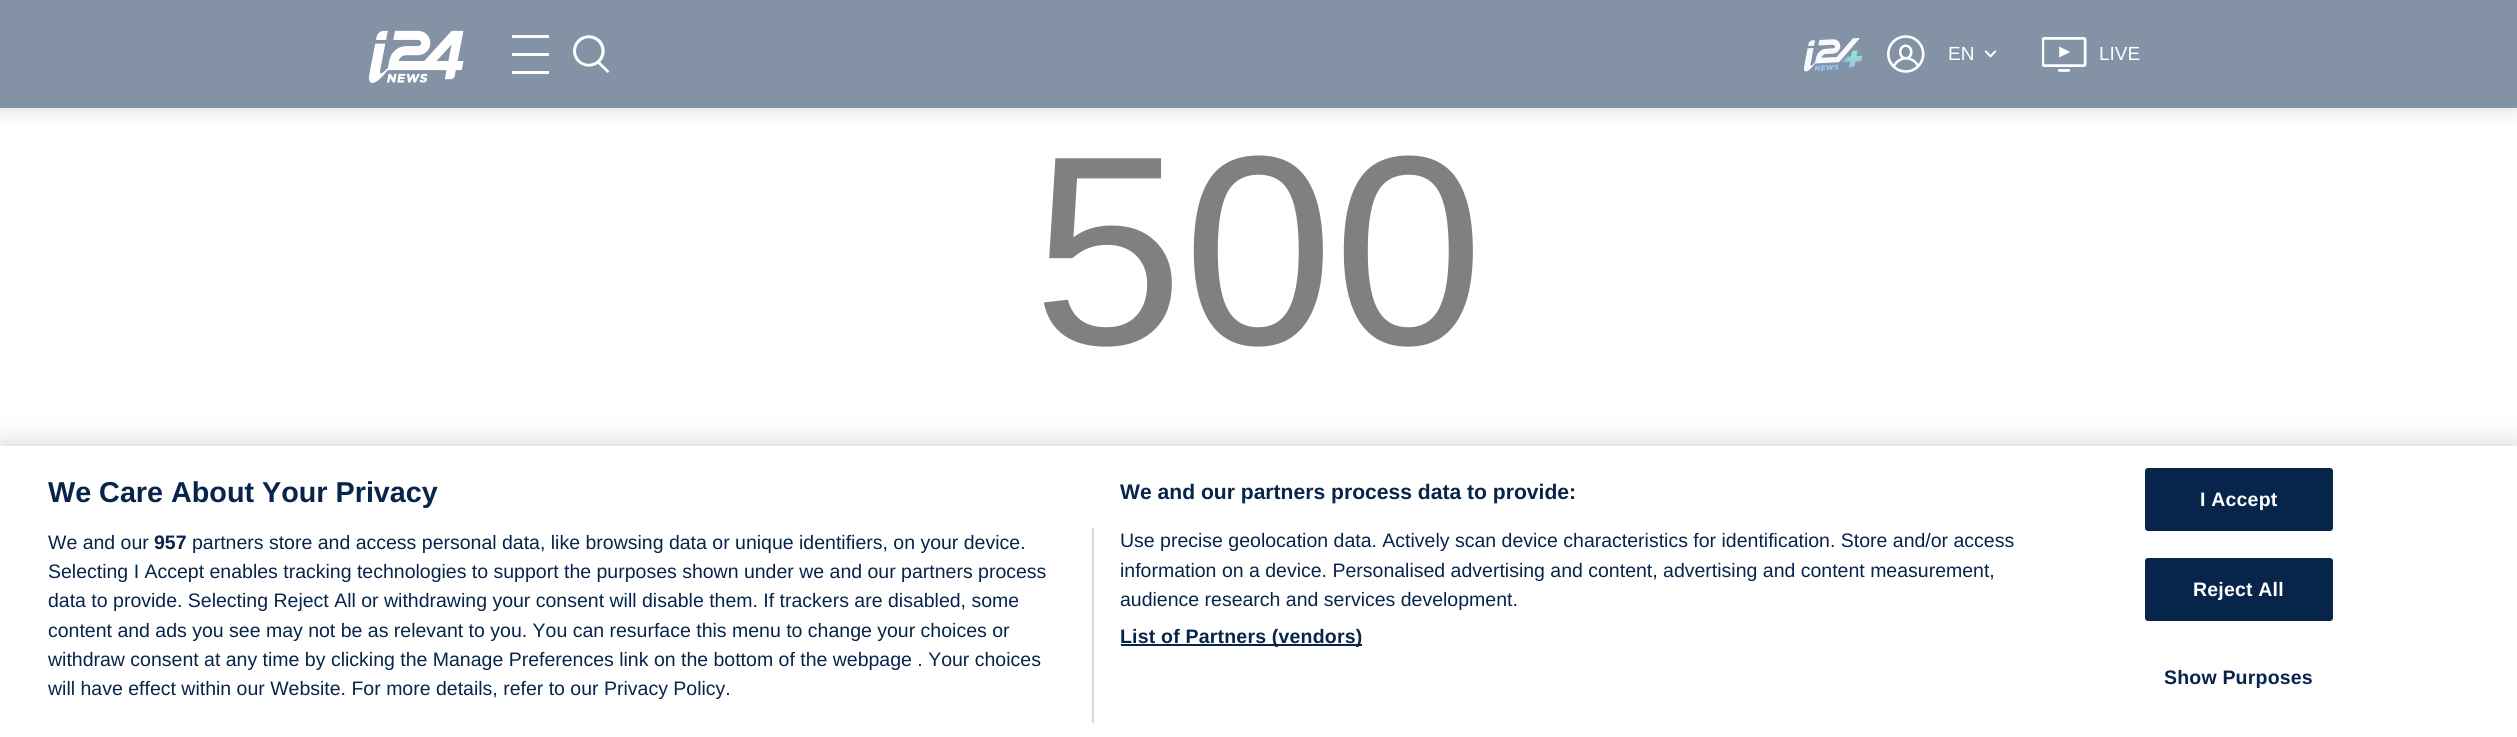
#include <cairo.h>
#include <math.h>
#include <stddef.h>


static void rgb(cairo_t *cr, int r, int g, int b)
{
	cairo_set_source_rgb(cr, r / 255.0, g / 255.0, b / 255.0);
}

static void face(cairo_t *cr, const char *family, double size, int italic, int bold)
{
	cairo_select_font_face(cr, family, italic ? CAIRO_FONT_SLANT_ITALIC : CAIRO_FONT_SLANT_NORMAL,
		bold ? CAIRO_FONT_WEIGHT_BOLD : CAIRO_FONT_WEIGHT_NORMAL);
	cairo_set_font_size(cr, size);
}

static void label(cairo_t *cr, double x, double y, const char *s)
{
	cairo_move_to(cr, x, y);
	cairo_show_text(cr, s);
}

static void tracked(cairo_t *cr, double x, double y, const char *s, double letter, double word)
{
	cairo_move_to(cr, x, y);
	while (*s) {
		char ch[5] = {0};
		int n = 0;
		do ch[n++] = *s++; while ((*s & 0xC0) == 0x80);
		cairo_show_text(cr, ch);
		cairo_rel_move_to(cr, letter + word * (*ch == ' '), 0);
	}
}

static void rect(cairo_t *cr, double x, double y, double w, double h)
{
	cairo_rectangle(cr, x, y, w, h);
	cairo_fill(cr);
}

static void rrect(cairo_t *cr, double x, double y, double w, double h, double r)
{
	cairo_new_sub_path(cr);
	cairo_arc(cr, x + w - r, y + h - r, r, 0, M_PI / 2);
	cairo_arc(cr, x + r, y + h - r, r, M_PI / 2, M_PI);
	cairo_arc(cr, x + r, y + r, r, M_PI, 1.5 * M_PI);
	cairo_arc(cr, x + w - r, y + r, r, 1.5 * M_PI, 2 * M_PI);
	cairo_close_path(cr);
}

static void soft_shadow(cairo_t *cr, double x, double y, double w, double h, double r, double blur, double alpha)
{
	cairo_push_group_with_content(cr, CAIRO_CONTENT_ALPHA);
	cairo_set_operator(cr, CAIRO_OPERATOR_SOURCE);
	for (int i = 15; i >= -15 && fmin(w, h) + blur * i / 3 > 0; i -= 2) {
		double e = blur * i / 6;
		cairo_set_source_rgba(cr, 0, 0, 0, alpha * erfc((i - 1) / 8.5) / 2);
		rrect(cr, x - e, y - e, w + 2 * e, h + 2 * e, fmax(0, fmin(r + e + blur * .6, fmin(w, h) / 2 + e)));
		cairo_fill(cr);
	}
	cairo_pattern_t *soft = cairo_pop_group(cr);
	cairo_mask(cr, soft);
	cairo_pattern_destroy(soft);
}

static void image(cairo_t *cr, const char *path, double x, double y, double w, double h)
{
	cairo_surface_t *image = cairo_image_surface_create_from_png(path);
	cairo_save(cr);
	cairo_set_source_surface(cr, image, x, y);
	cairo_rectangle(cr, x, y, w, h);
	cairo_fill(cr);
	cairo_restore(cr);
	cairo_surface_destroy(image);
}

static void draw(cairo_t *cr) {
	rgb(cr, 255, 255, 255);
	cairo_paint(cr);
	rgb(cr, 128, 128, 128);
	soft_shadow(cr, 0, 3, 2517, 108, 0, 9, 0.25);
	rgb(cr, 131, 146, 165);
	rect(cr, 0, 0, 2517, 108);
	image(cr, "image0.png", 369, 30, 95, 54);
	rgb(cr, 255, 255, 255);
	rect(cr, 512, 35, 37, 3);
	rect(cr, 512, 53, 37, 3);
	rect(cr, 512, 71, 37, 3);
	image(cr, "image1.png", 573, 35, 36, 38);
	image(cr, "image2.png", 1804, 38, 58, 34);
	image(cr, "image3.png", 1887, 35, 38, 38);
	face(cr, "Liberation Sans", 19, 0, 0);
	label(cr, 1948, 60, "EN");
	image(cr, "image4.png", 1984, 50, 13, 8);
	image(cr, "image5.png", 2042, 37, 45, 35);
	label(cr, 2099, 60, "LIVE");
	face(cr, "Liberation Sans", 270, 0, 0);
	rgb(cr, 128, 128, 128);
	label(cr, 1033, 344, "500");
	rgb(cr, 0, 0, 0);
	soft_shadow(cr, 0, 446, 2517, 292, 0, 13.5, 0.2);
	rgb(cr, 255, 255, 255);
	rect(cr, 0, 446, 2517, 291);
	face(cr, "Liberation Sans", 28.75, 0, 1);
	rgb(cr, 7, 36, 75);
	label(cr, 48, 502, "We Care About Your Privacy");
	face(cr, "Liberation Sans", 21.1, 0, 1);
	label(cr, 1120, 499, "We and our partners process data to provide:");
	face(cr, "Liberation Sans", 19.5, 0, 0);
	label(cr, 1120, 547, "Use precise geolocation data. Actively scan device characteristics for identification. Store and/or access");
	label(cr, 1120, 577, "information on a device. Personalised advertising and content, advertising and content measurement,");
	label(cr, 1120, 606, "audience research and services development.");
	rect(cr, 1121, 644, 241, 2);
	face(cr, "Liberation Sans", 19.5, 0, 1);
	tracked(cr, 1120, 643, "List of Partners (vendors)", 0.2, 0);
	rgb(cr, 216, 216, 216);
	rect(cr, 1092, 528, 2, 195);
	face(cr, "Liberation Sans", 19.5, 0, 0);
	rgb(cr, 7, 36, 75);
	label(cr, 48, 549, "We and our");
	face(cr, "Liberation Sans", 19.5, 0, 1);
	label(cr, 154, 549, "957");
	face(cr, "Liberation Sans", 19.5, 0, 0);
	label(cr, 192, 549, "partners store and access personal data, like browsing data or unique identifiers, on your device.");
	label(cr, 48, 578, "Selecting I Accept enables tracking technologies to support the purposes shown under we and our partners process");
	label(cr, 48, 607, "data to provide. Selecting Reject All or withdrawing your consent will disable them. If trackers are disabled, some");
	label(cr, 48, 637, "content and ads you see may not be as relevant to you. You can resurface this menu to change your choices or");
	label(cr, 48, 666, "withdraw consent at any time by clicking the Manage Preferences link on the bottom of the webpage . Your choices");
	label(cr, 48, 695, "will have effect within our Website. For more details, refer to our Privacy Policy.");
	rrect(cr, 2146, 469, 186, 61, 2);
	cairo_fill_preserve(cr);
	cairo_stroke(cr);
	face(cr, "Liberation Sans", 19.5, 0, 1);
	rgb(cr, 255, 255, 255);
	tracked(cr, 2200, 506, "I Accept", 0.2, 0);
	rgb(cr, 7, 36, 75);
	rrect(cr, 2146, 559, 186, 61, 2);
	cairo_fill_preserve(cr);
	cairo_stroke(cr);
	rgb(cr, 255, 255, 255);
	tracked(cr, 2193, 596, "Reject All", 0.2, 0);
	rgb(cr, 7, 36, 75);
	tracked(cr, 2164, 684, "Show Purposes", 0.2, 0);
}

int main(void) {
	cairo_surface_t *surface = cairo_image_surface_create(CAIRO_FORMAT_RGB24, 2517, 737);
	cairo_t *cr = cairo_create(surface);
	cairo_font_options_t *options = cairo_font_options_create();
	cairo_font_options_set_hint_metrics(options, CAIRO_HINT_METRICS_OFF);
	cairo_font_options_set_hint_style(options, CAIRO_HINT_STYLE_NONE);
	cairo_set_font_options(cr, options);
	cairo_set_miter_limit(cr, 4);
	draw(cr);
	cairo_surface_write_to_png(surface, "render.png");
	cairo_font_options_destroy(options);
	cairo_destroy(cr);
	cairo_surface_destroy(surface);
	return 0;
}
